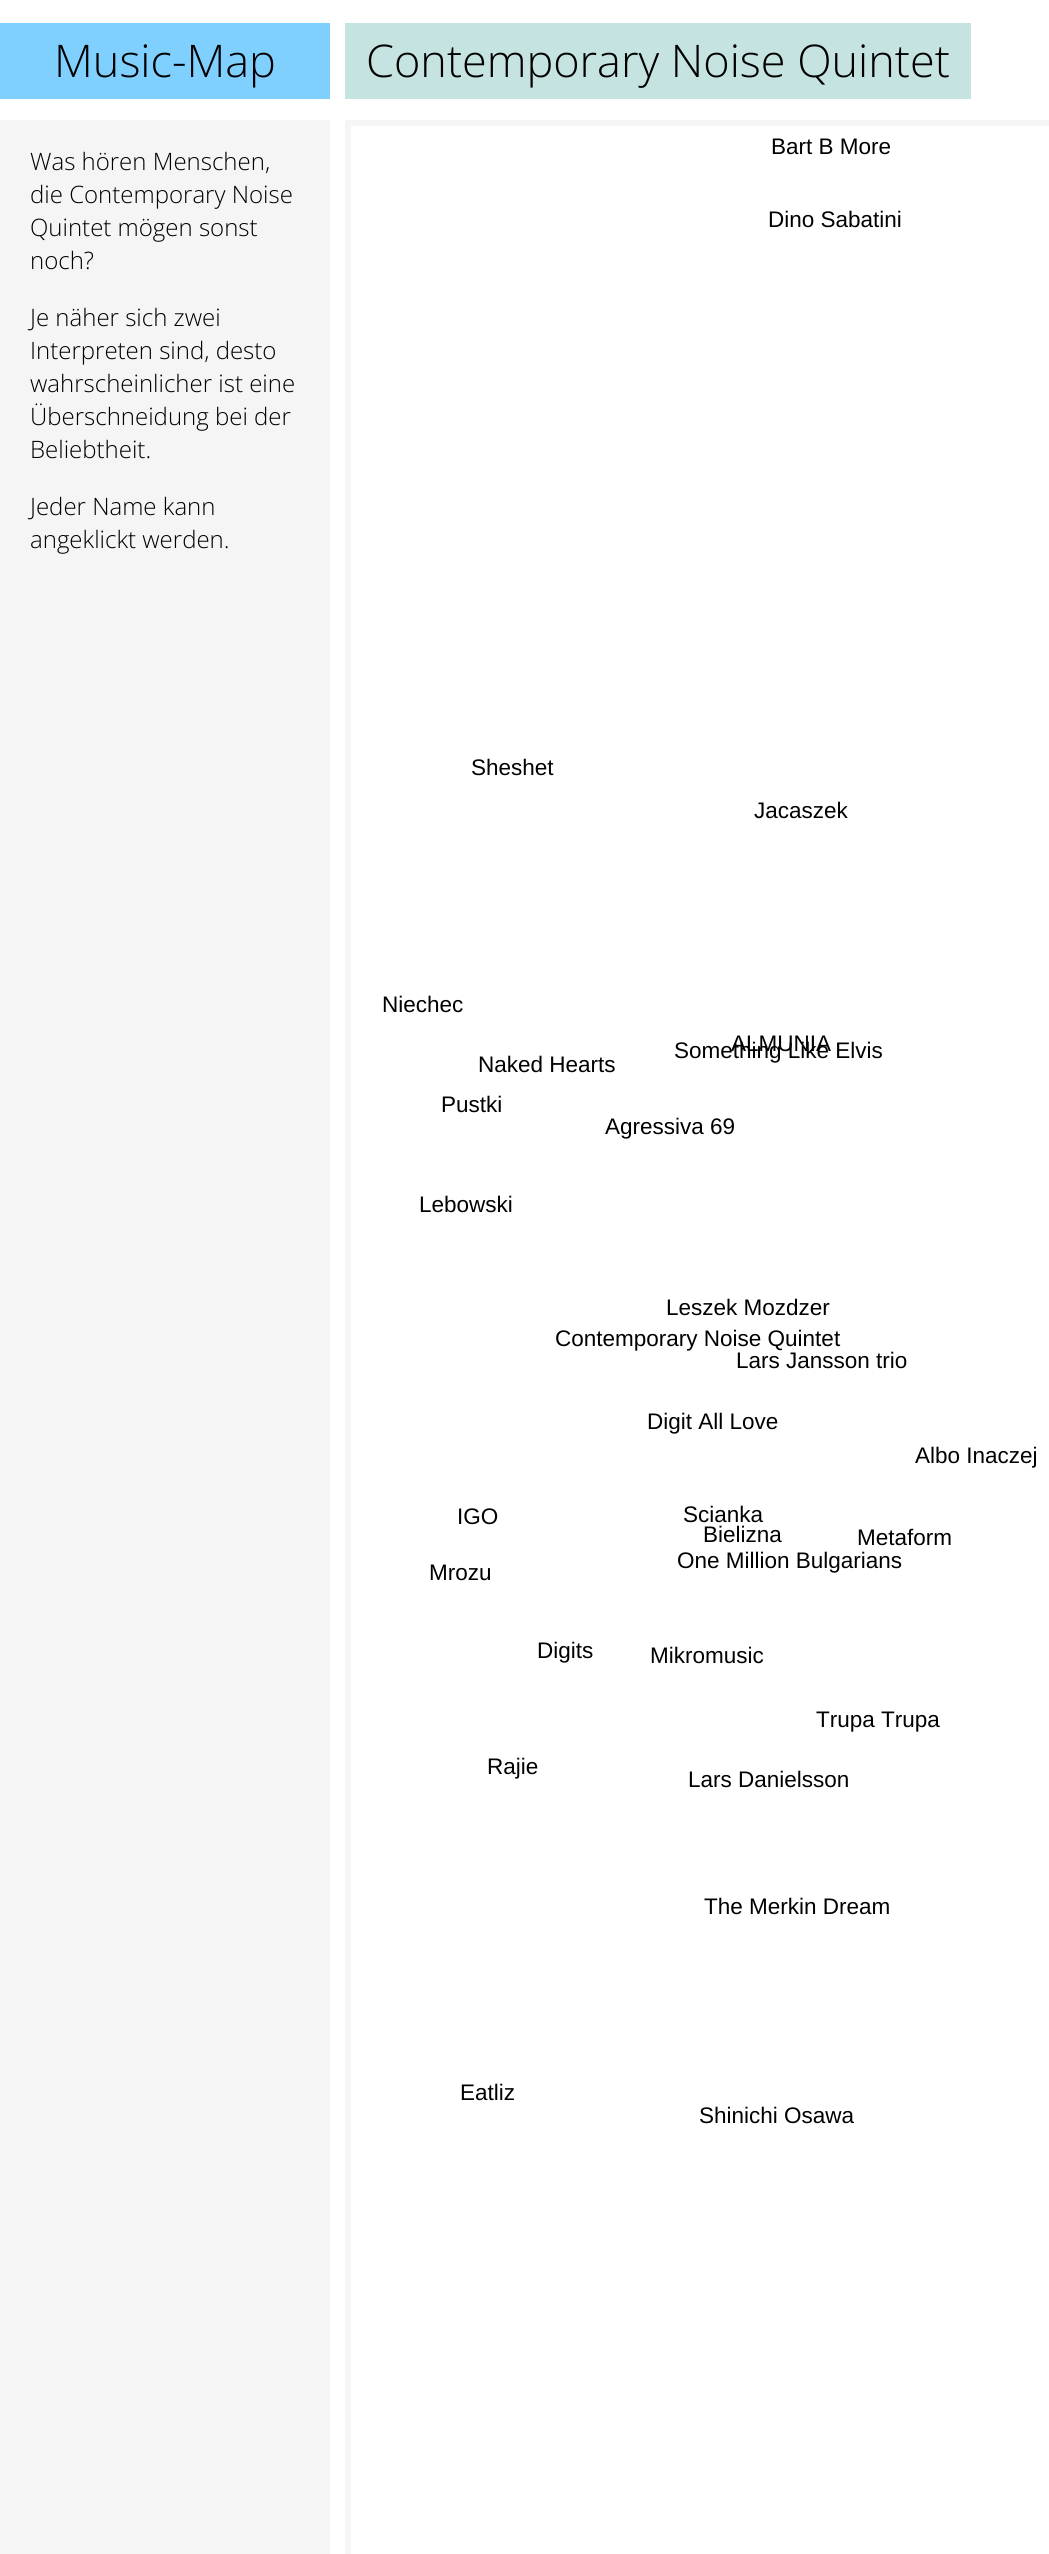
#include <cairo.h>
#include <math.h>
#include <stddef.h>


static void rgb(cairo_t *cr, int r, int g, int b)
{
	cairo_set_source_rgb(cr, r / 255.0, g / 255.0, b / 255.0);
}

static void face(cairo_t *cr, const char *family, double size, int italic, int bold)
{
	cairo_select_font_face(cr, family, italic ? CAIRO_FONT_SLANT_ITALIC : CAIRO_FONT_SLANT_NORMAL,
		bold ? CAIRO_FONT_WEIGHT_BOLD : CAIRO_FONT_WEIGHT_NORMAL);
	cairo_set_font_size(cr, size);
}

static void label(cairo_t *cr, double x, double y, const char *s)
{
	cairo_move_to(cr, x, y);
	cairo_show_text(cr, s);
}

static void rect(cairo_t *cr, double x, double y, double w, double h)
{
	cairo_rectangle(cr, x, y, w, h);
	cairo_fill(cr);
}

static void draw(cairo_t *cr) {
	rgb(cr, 255, 255, 255);
	cairo_paint(cr);
	rgb(cr, 128, 208, 255);
	rect(cr, 0, 23, 330, 76);
	face(cr, "Open Sans Light", 45, 0, 0);
	rgb(cr, 0, 0, 0);
	label(cr, 54, 77, "Music-Map");
	rgb(cr, 197, 227, 224);
	rect(cr, 345, 23, 626, 76);
	rgb(cr, 0, 0, 0);
	label(cr, 366, 77, "Contemporary Noise Quintet");
	rgb(cr, 245, 245, 245);
	rect(cr, 0, 120, 330, 2434);
	face(cr, "Open Sans Light", 24, 0, 0);
	rgb(cr, 0, 0, 0);
	label(cr, 30, 170, "Was hören Menschen,");
	label(cr, 30, 203, "die Contemporary Noise");
	label(cr, 30, 236, "Quintet mögen sonst");
	label(cr, 30, 269, "noch?");
	label(cr, 30, 326, "Je näher sich zwei");
	label(cr, 30, 359, "Interpreten sind, desto");
	label(cr, 30, 392, "wahrscheinlicher ist eine");
	label(cr, 30, 425, "Überschneidung bei der");
	label(cr, 30, 458, "Beliebtheit.");
	label(cr, 30, 515, "Jeder Name kann");
	label(cr, 30, 548, "angeklickt werden.");
	cairo_save(cr);
	cairo_rectangle(cr, 345, 120, 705, 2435);
	cairo_clip(cr);
	rgb(cr, 245, 245, 245);
	cairo_set_fill_rule(cr, CAIRO_FILL_RULE_EVEN_ODD);
	cairo_new_path(cr);
	cairo_move_to(cr, 196, -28);
	cairo_line_to(cr, 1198, -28);
	cairo_line_to(cr, 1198, 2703);
	cairo_line_to(cr, 196, 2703);
	cairo_close_path(cr);
	cairo_move_to(cr, 351, 126);
	cairo_line_to(cr, 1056, 126);
	cairo_line_to(cr, 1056, 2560);
	cairo_line_to(cr, 351, 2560);
	cairo_close_path(cr);
	cairo_fill(cr);
	cairo_restore(cr);
	face(cr, "Liberation Sans", 22.5, 0, 0);
	label(cr, 771, 154, "Bart B More");
	label(cr, 768, 227, "Dino Sabatini");
	label(cr, 471, 775, "Sheshet");
	label(cr, 754, 818, "Jacaszek");
	label(cr, 382, 1012, "Niechec");
	label(cr, 731, 1051, "ALMUNIA");
	label(cr, 478, 1072, "Naked Hearts");
	label(cr, 674, 1058, "Something Like Elvis");
	label(cr, 441, 1112, "Pustki");
	label(cr, 605, 1134, "Agressiva 69");
	label(cr, 419, 1212, "Lebowski");
	label(cr, 666, 1315, "Leszek Mozdzer");
	label(cr, 555, 1346, "Contemporary Noise Quintet");
	label(cr, 736, 1368, "Lars Jansson trio");
	label(cr, 647, 1429, "Digit All Love");
	label(cr, 915, 1463, "Albo Inaczej");
	label(cr, 457, 1524, "IGO");
	label(cr, 683, 1522, "Scianka");
	label(cr, 703, 1542, "Bielizna");
	label(cr, 857, 1545, "Metaform");
	label(cr, 429, 1580, "Mrozu");
	label(cr, 677, 1568, "One Million Bulgarians");
	label(cr, 537, 1658, "Digits");
	label(cr, 650, 1663, "Mikromusic");
	label(cr, 816, 1727, "Trupa Trupa");
	label(cr, 487, 1774, "Rajie");
	label(cr, 688, 1787, "Lars Danielsson");
	label(cr, 704, 1914, "The Merkin Dream");
	label(cr, 460, 2100, "Eatliz");
	label(cr, 699, 2123, "Shinichi Osawa");
}

int main(void) {
	cairo_surface_t *surface = cairo_image_surface_create(CAIRO_FORMAT_RGB24, 1049, 2554);
	cairo_t *cr = cairo_create(surface);
	cairo_font_options_t *options = cairo_font_options_create();
	cairo_font_options_set_hint_metrics(options, CAIRO_HINT_METRICS_OFF);
	cairo_font_options_set_hint_style(options, CAIRO_HINT_STYLE_NONE);
	cairo_set_font_options(cr, options);
	cairo_set_miter_limit(cr, 4);
	draw(cr);
	cairo_surface_write_to_png(surface, "render.png");
	cairo_font_options_destroy(options);
	cairo_destroy(cr);
	cairo_surface_destroy(surface);
	return 0;
}
